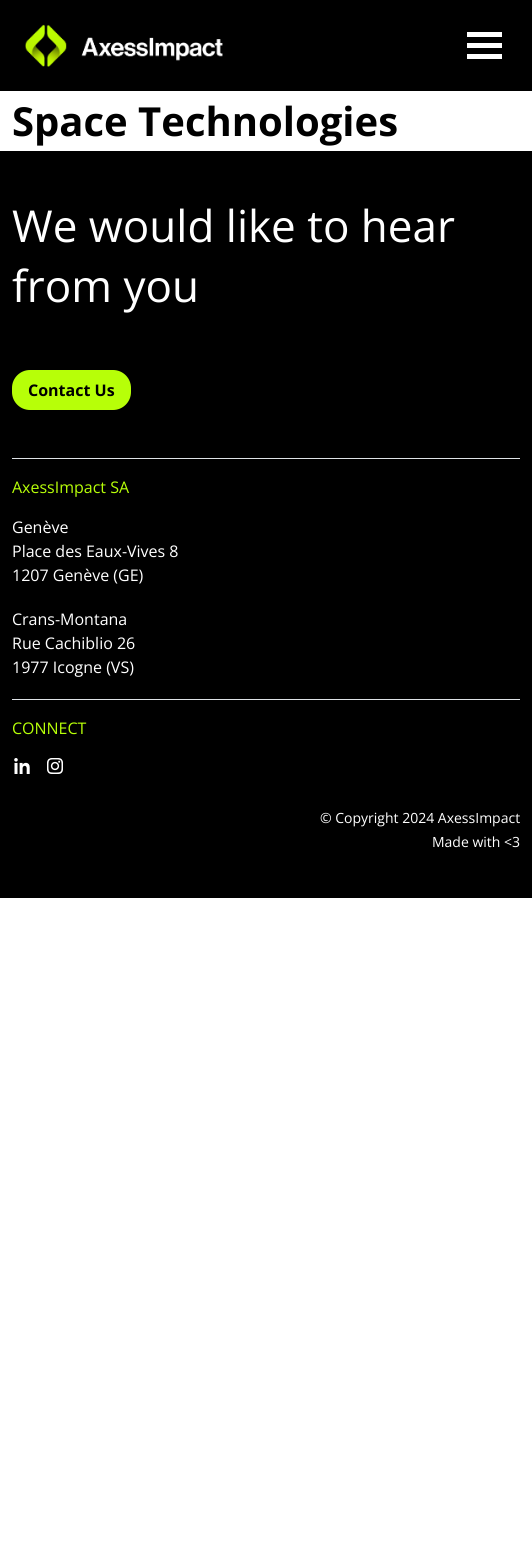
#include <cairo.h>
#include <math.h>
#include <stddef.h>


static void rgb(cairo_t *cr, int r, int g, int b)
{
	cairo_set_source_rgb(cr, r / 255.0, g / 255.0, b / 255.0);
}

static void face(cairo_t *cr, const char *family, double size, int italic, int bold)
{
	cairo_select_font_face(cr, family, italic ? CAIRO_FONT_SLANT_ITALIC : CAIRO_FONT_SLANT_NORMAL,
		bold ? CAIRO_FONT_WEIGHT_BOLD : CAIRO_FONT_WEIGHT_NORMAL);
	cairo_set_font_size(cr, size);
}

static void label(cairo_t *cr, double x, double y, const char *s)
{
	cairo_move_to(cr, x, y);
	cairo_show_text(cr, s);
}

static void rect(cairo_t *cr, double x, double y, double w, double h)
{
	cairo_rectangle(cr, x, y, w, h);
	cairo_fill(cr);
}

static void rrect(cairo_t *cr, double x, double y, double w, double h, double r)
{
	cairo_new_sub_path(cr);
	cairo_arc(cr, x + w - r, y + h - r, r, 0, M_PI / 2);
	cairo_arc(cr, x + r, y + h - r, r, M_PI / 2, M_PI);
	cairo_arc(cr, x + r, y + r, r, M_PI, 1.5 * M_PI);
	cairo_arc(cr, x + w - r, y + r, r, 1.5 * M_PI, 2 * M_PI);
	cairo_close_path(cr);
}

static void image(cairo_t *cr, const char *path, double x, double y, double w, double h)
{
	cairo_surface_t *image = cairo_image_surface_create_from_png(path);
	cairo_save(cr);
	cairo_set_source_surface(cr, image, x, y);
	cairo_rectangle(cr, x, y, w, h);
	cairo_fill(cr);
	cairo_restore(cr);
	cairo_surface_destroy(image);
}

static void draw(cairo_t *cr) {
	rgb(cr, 255, 255, 255);
	cairo_paint(cr);
	rgb(cr, 0, 0, 0);
	rect(cr, 0, 0, 532, 91);
	image(cr, "image0.png", 25, 24, 198, 43);
	rgb(cr, 255, 255, 255);
	rect(cr, 467, 32, 35, 5);
	rect(cr, 467, 43, 35, 5);
	rect(cr, 467, 54, 35, 5);
	face(cr, "Open Sans", 40, 0, 1);
	rgb(cr, 0, 0, 0);
	label(cr, 12, 136, "Space Technologies");
	rect(cr, 0, 151, 532, 747);
	face(cr, "Open Sans", 44, 0, 0);
	rgb(cr, 255, 255, 255);
	label(cr, 12, 242, "We would like to hear");
	label(cr, 12, 302, "from you");
	rgb(cr, 183, 255, 8);
	rrect(cr, 12, 370, 119, 40, 18);
	cairo_fill(cr);
	face(cr, "Open Sans", 16, 0, 1);
	rgb(cr, 0, 0, 0);
	label(cr, 28, 396, "Contact Us");
	rgb(cr, 222, 226, 230);
	rect(cr, 12, 458, 508, 1);
	face(cr, "Open Sans", 16, 0, 0);
	rgb(cr, 183, 255, 8);
	label(cr, 12, 493, "AxessImpact SA");
	rgb(cr, 255, 255, 255);
	label(cr, 12, 533, "Genève");
	label(cr, 12, 557, "Place des Eaux-Vives 8");
	label(cr, 12, 581, "1207 Genève (GE)");
	label(cr, 12, 625, "Crans-Montana");
	label(cr, 12, 649, "Rue Cachiblio 26");
	label(cr, 12, 673, "1977 Icogne (VS)");
	rgb(cr, 222, 226, 230);
	rect(cr, 12, 699, 508, 1);
	rgb(cr, 183, 255, 8);
	label(cr, 12, 734, "CONNECT");
	image(cr, "image1.png", 14, 758, 16, 16);
	image(cr, "image2.png", 47, 758, 16, 16);
	face(cr, "Open Sans", 14, 0, 0);
	rgb(cr, 255, 255, 255);
	label(cr, 320, 823, "© Copyright 2024 AxessImpact");
	label(cr, 432, 847, "Made with <3");
}

int main(void) {
	cairo_surface_t *surface = cairo_image_surface_create(CAIRO_FORMAT_RGB24, 532, 1556);
	cairo_t *cr = cairo_create(surface);
	cairo_font_options_t *options = cairo_font_options_create();
	cairo_font_options_set_hint_metrics(options, CAIRO_HINT_METRICS_OFF);
	cairo_font_options_set_hint_style(options, CAIRO_HINT_STYLE_NONE);
	cairo_set_font_options(cr, options);
	cairo_set_miter_limit(cr, 4);
	draw(cr);
	cairo_surface_write_to_png(surface, "render.png");
	cairo_font_options_destroy(options);
	cairo_destroy(cr);
	cairo_surface_destroy(surface);
	return 0;
}
